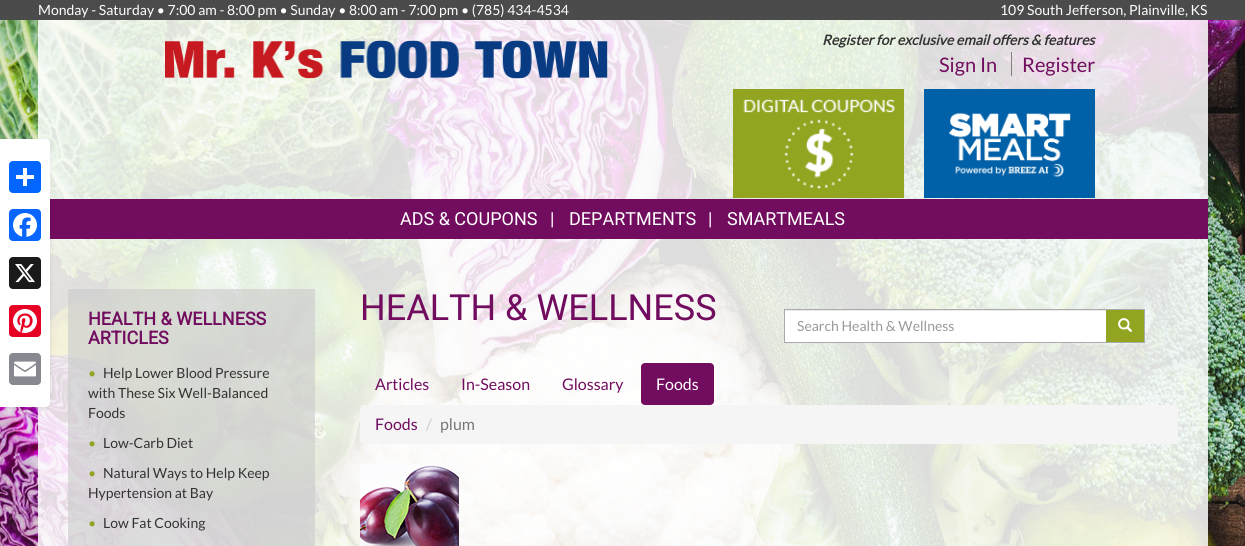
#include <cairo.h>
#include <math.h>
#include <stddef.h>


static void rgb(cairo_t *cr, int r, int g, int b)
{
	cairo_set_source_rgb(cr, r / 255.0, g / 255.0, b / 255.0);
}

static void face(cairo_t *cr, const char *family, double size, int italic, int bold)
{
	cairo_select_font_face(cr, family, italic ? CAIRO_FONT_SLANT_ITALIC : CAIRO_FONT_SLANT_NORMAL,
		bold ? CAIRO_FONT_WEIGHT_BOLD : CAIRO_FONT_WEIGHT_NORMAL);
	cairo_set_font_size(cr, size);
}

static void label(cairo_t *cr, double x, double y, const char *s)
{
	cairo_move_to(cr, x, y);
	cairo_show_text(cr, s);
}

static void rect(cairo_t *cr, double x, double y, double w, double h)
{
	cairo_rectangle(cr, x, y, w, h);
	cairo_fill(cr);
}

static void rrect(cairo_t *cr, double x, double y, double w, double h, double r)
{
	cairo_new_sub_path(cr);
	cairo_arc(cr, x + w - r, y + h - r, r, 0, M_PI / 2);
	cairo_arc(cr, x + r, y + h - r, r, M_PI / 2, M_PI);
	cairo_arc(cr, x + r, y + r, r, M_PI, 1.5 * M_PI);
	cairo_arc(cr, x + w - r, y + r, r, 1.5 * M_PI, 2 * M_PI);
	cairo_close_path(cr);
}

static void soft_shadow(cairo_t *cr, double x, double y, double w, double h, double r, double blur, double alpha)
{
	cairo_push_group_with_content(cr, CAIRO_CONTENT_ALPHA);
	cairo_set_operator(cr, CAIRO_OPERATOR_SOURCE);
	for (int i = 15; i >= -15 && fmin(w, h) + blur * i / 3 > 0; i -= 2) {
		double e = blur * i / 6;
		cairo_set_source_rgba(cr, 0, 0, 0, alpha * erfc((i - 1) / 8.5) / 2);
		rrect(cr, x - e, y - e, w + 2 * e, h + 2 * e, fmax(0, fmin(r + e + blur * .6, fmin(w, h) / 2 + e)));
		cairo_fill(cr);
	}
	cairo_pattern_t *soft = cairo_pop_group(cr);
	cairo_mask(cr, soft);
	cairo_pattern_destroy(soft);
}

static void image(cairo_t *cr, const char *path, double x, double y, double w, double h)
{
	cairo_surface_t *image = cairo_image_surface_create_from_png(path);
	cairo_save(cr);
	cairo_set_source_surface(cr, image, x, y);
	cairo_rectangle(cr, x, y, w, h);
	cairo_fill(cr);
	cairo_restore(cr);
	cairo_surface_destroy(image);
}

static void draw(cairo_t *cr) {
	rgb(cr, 255, 255, 255);
	cairo_paint(cr);
	image(cr, "image0.png", 0, 20, 1245, 526);
	rgb(cr, 75, 75, 75);
	rect(cr, 0, 0, 1245, 20);
	face(cr, "Lato", 14, 0, 0);
	rgb(cr, 255, 255, 255);
	label(cr, 38, 15, "Monday - Saturday • 7:00 am - 8:00 pm • Sunday • 8:00 am - 7:00 pm • (785) 434-4534");
	label(cr, 1000, 15, "109 South Jefferson, Plainville, KS");
	cairo_set_source_rgba(cr, 1, 1, 1, 0.85);
	rect(cr, 38, 20, 1170, 179);
	rgb(cr, 113, 12, 95);
	rect(cr, 50, 199, 1158, 40);
	cairo_set_source_rgba(cr, 1, 1, 1, 0.85);
	rect(cr, 38, 239, 1170, 307);
	rgb(cr, 0, 0, 0);
	soft_shadow(cr, 0, 141, 50, 268, 4, 2.5, 0.1);
	rgb(cr, 255, 255, 255);
	cairo_new_path(cr);
	cairo_move_to(cr, 0, 139);
	cairo_line_to(cr, 46, 139);
	cairo_curve_to(cr, 48, 139, 50, 141, 50, 143);
	cairo_line_to(cr, 50, 403);
	cairo_curve_to(cr, 50, 405, 48, 407, 46, 407);
	cairo_line_to(cr, 0, 407);
	cairo_close_path(cr);
	cairo_fill(cr);
	rgb(cr, 1, 102, 255);
	rrect(cr, 9, 161, 32, 32, 4);
	cairo_fill(cr);
	rgb(cr, 255, 255, 255);
	rect(cr, 23, 168, 4, 18);
	rect(cr, 16, 175, 18, 4);
	rgb(cr, 8, 102, 255);
	rrect(cr, 9, 209, 32, 32, 4);
	cairo_fill(cr);
	image(cr, "image1.png", 13, 213, 24, 24);
	rgb(cr, 26, 26, 26);
	rrect(cr, 9, 257, 32, 32, 4);
	cairo_fill(cr);
	image(cr, "image2.png", 15, 264, 20, 19);
	rgb(cr, 230, 0, 35);
	rrect(cr, 9, 305, 32, 32, 4);
	cairo_fill(cr);
	image(cr, "image3.png", 13, 309, 24, 24);
	rgb(cr, 136, 137, 144);
	rrect(cr, 9, 353, 32, 32, 4);
	cairo_fill(cr);
	image(cr, "image4.png", 14, 361, 22, 16);
	image(cr, "image5.png", 165, 40, 443, 39);
	face(cr, "Lato", 14, 1, 1);
	rgb(cr, 51, 51, 51);
	label(cr, 822, 45, "Register for exclusive email offers & features");
	face(cr, "Lato", 20, 0, 0);
	rgb(cr, 113, 12, 95);
	label(cr, 939, 72, "Sign In");
	rgb(cr, 128, 128, 128);
	rect(cr, 1011, 52, 1, 24);
	rgb(cr, 113, 12, 95);
	label(cr, 1022, 72, "Register");
	rgb(cr, 147, 164, 32);
	rect(cr, 733, 89, 171, 109);
	image(cr, "image6.png", 743, 99, 152, 90);
	image(cr, "image7.png", 924, 89, 171, 109);
	face(cr, "Roboto", 18, 0, 0);
	rgb(cr, 255, 255, 255);
	label(cr, 400, 225, "ADS & COUPONS");
	label(cr, 550, 225, "|");
	label(cr, 569, 225, "DEPARTMENTS");
	label(cr, 708, 225, "|");
	label(cr, 727, 225, "SMARTMEALS");
	cairo_set_source_rgba(cr, 0.8, 0.8, 0.8, 0.65);
	rect(cr, 68, 289, 247, 257);
	face(cr, "Roboto", 18, 0, 1);
	rgb(cr, 113, 12, 95);
	label(cr, 88, 325, "HEALTH & WELLNESS");
	label(cr, 88, 344, "ARTICLES");
	face(cr, "Lato", 14, 0, 0);
	rgb(cr, 147, 164, 32);
	label(cr, 88, 378, "•");
	rgb(cr, 51, 51, 51);
	label(cr, 103, 378, "Help Lower Blood Pressure");
	label(cr, 88, 398, "with These Six Well-Balanced");
	label(cr, 88, 418, "Foods");
	rgb(cr, 147, 164, 32);
	label(cr, 88, 448, "•");
	rgb(cr, 51, 51, 51);
	label(cr, 103, 448, "Low-Carb Diet");
	rgb(cr, 147, 164, 32);
	label(cr, 88, 478, "•");
	rgb(cr, 51, 51, 51);
	label(cr, 103, 478, "Natural Ways to Help Keep");
	label(cr, 88, 498, "Hypertension at Bay");
	rgb(cr, 147, 164, 32);
	label(cr, 88, 528, "•");
	rgb(cr, 51, 51, 51);
	label(cr, 103, 528, "Low Fat Cooking");
	face(cr, "Roboto", 36, 0, 0);
	rgb(cr, 113, 12, 95);
	label(cr, 360, 320, "HEALTH & WELLNESS");
	rgb(cr, 255, 255, 255);
	rect(cr, 785, 311, 321, 31);
	rgb(cr, 236, 236, 236);
	rect(cr, 785, 310, 323, 1);
	cairo_rectangle(cr, 784.5, 309.5, 324, 33);
	rgb(cr, 170, 170, 170);
	cairo_set_line_width(cr, 1);
	cairo_stroke(cr);
	face(cr, "Lato", 14, 0, 0);
	rgb(cr, 153, 153, 153);
	label(cr, 797, 331, "Search Health & Wellness");
	rgb(cr, 147, 164, 32);
	rect(cr, 1106, 310, 38, 32);
	rgb(cr, 170, 170, 170);
	rect(cr, 1106, 309, 39, 1);
	rect(cr, 1144, 309, 1, 34);
	rect(cr, 1106, 342, 39, 1);
	image(cr, "image8.png", 1118, 318, 15, 14);
	face(cr, "Lato", 16, 0, 0);
	rgb(cr, 113, 12, 95);
	label(cr, 375, 390, "Articles");
	label(cr, 461, 390, "In-Season");
	label(cr, 562, 390, "Glossary");
	rrect(cr, 641, 363, 73, 42, 4);
	cairo_fill(cr);
	rgb(cr, 255, 255, 255);
	label(cr, 656, 390, "Foods");
	rgb(cr, 245, 245, 245);
	rrect(cr, 360, 405, 818, 39, 4);
	cairo_fill(cr);
	rgb(cr, 113, 12, 95);
	label(cr, 375, 430, "Foods");
	rgb(cr, 204, 204, 204);
	label(cr, 426, 430, "/");
	rgb(cr, 119, 119, 119);
	label(cr, 440, 430, "plum");
	image(cr, "image9.png", 360, 464, 99, 82);
}

int main(void) {
	cairo_surface_t *surface = cairo_image_surface_create(CAIRO_FORMAT_RGB24, 1245, 546);
	cairo_t *cr = cairo_create(surface);
	cairo_font_options_t *options = cairo_font_options_create();
	cairo_font_options_set_hint_metrics(options, CAIRO_HINT_METRICS_OFF);
	cairo_font_options_set_hint_style(options, CAIRO_HINT_STYLE_NONE);
	cairo_set_font_options(cr, options);
	cairo_set_miter_limit(cr, 4);
	draw(cr);
	cairo_surface_write_to_png(surface, "render.png");
	cairo_font_options_destroy(options);
	cairo_destroy(cr);
	cairo_surface_destroy(surface);
	return 0;
}
